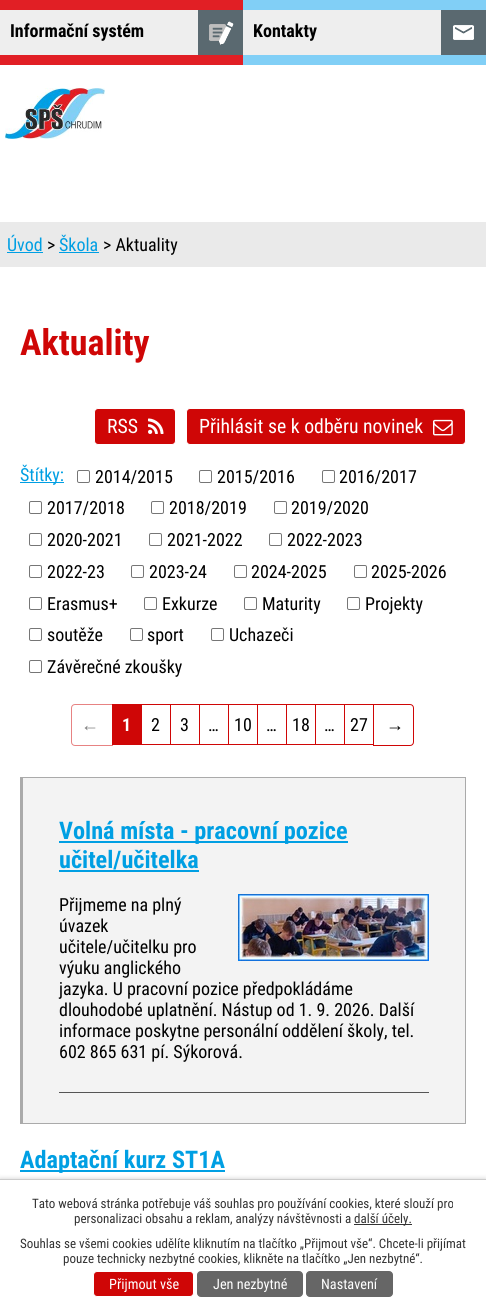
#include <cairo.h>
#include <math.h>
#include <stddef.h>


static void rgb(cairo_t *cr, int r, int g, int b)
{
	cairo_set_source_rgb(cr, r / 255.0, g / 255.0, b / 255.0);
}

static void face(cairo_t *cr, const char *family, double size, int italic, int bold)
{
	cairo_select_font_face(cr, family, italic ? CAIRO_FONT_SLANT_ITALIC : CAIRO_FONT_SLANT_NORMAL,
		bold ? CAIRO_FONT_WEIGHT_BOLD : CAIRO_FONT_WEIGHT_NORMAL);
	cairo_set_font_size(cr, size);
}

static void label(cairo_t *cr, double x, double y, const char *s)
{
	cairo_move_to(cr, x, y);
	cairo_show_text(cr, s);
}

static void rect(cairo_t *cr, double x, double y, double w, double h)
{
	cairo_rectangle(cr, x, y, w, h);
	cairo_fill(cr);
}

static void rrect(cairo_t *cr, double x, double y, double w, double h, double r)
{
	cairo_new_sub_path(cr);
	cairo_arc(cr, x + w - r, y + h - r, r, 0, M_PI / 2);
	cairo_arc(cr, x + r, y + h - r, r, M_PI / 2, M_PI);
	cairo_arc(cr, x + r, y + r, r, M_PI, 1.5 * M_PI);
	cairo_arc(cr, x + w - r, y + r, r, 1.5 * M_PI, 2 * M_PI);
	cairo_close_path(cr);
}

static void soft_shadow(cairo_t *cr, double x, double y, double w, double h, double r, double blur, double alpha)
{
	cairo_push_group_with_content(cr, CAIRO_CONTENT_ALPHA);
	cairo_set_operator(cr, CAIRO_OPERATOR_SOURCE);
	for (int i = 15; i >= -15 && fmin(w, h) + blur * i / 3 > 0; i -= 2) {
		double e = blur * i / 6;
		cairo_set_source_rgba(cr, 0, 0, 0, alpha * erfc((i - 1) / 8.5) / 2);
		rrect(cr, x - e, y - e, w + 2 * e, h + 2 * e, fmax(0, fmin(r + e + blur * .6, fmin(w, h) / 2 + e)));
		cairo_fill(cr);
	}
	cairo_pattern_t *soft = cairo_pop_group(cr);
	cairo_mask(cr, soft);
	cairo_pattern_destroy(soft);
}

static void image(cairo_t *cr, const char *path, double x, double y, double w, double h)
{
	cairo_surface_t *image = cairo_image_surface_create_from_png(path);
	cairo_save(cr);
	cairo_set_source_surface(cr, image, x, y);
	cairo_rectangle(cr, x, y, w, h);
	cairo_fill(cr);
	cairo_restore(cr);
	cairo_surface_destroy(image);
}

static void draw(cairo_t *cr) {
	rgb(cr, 255, 255, 255);
	cairo_paint(cr);
	rgb(cr, 225, 31, 37);
	rect(cr, 0, 0, 243, 65);
	rgb(cr, 238, 238, 238);
	rect(cr, 0, 10, 198, 45);
	face(cr, "Roboto Condensed", 18, 0, 1);
	rgb(cr, 0, 0, 0);
	label(cr, 10, 37, "Informační systém");
	rgb(cr, 90, 105, 112);
	rect(cr, 198, 10, 45, 45);
	image(cr, "image0.png", 209, 21, 25, 24);
	rgb(cr, 129, 207, 246);
	rect(cr, 243, 0, 243, 65);
	rgb(cr, 238, 238, 238);
	rect(cr, 243, 10, 198, 45);
	rgb(cr, 0, 0, 0);
	label(cr, 253, 37, "Kontakty");
	rgb(cr, 90, 105, 112);
	rect(cr, 441, 10, 45, 45);
	image(cr, "image1.png", 453, 25, 21, 15);
	image(cr, "image2.png", 5, 88, 100, 51);
	rgb(cr, 234, 234, 234);
	rect(cr, 0, 222, 486, 45);
	face(cr, "Roboto Condensed", 18, 0, 0);
	rgb(cr, 0, 159, 227);
	label(cr, 7, 251, "Úvod");
	rect(cr, 7, 252, 36, 1);
	rgb(cr, 0, 0, 0);
	label(cr, 47, 251, ">");
	rgb(cr, 0, 159, 227);
	label(cr, 59, 251, "Škola");
	rect(cr, 59, 252, 40, 1);
	rgb(cr, 0, 0, 0);
	label(cr, 103, 251, "> Aktuality");
	face(cr, "Roboto Condensed", 36, 0, 1);
	rgb(cr, 207, 6, 6);
	label(cr, 20, 355, "Aktuality");
	rrect(cr, 94.5, 408.5, 81, 36, 3.5);
	cairo_fill_preserve(cr);
	rgb(cr, 255, 255, 255);
	cairo_set_line_width(cr, 1);
	cairo_stroke(cr);
	face(cr, "Roboto Condensed", 19.75, 0, 0);
	label(cr, 107, 433, "RSS");
	image(cr, "image3.png", 148, 418, 16, 16);
	rgb(cr, 207, 6, 6);
	rrect(cr, 186.5, 408.5, 279, 36, 3.5);
	cairo_fill_preserve(cr);
	rgb(cr, 255, 255, 255);
	cairo_stroke(cr);
	label(cr, 199, 433, "Přihlásit se k odběru novinek");
	image(cr, "image4.png", 433, 419, 20, 17);
	rgb(cr, 0, 159, 227);
	rect(cr, 20, 482, 44, 1);
	face(cr, "Roboto Condensed", 18, 0, 0);
	label(cr, 20, 481, "Štítky:");
	rrect(cr, 77.5, 470.5, 12, 12, 1.5);
	rgb(cr, 118, 118, 118);
	cairo_stroke(cr);
	rgb(cr, 0, 0, 0);
	label(cr, 95, 483, "2014/2015");
	rrect(cr, 199.5, 470.5, 12, 12, 1.5);
	rgb(cr, 118, 118, 118);
	cairo_stroke(cr);
	rgb(cr, 0, 0, 0);
	label(cr, 217, 483, "2015/2016");
	rrect(cr, 322.5, 470.5, 12, 12, 1.5);
	rgb(cr, 118, 118, 118);
	cairo_stroke(cr);
	rgb(cr, 0, 0, 0);
	label(cr, 339, 483, "2016/2017");
	rrect(cr, 29.5, 501.5, 12, 12, 1.5);
	rgb(cr, 118, 118, 118);
	cairo_stroke(cr);
	rgb(cr, 0, 0, 0);
	label(cr, 47, 514, "2017/2018");
	rrect(cr, 151.5, 501.5, 12, 12, 1.5);
	rgb(cr, 118, 118, 118);
	cairo_stroke(cr);
	rgb(cr, 0, 0, 0);
	label(cr, 169, 514, "2018/2019");
	rrect(cr, 274.5, 501.5, 12, 12, 1.5);
	rgb(cr, 118, 118, 118);
	cairo_stroke(cr);
	rgb(cr, 0, 0, 0);
	label(cr, 291, 514, "2019/2020");
	rrect(cr, 29.5, 533.5, 12, 12, 1.5);
	rgb(cr, 118, 118, 118);
	cairo_stroke(cr);
	rgb(cr, 0, 0, 0);
	label(cr, 47, 546, "2020-2021");
	rrect(cr, 149.5, 533.5, 12, 12, 1.5);
	rgb(cr, 118, 118, 118);
	cairo_stroke(cr);
	rgb(cr, 0, 0, 0);
	label(cr, 167, 546, "2021-2022");
	rrect(cr, 269.5, 533.5, 12, 12, 1.5);
	rgb(cr, 118, 118, 118);
	cairo_stroke(cr);
	rgb(cr, 0, 0, 0);
	label(cr, 287, 546, "2022-2023");
	rrect(cr, 29.5, 565.5, 12, 12, 1.5);
	rgb(cr, 118, 118, 118);
	cairo_stroke(cr);
	rgb(cr, 0, 0, 0);
	label(cr, 47, 578, "2022-23");
	rrect(cr, 131.5, 565.5, 12, 12, 1.5);
	rgb(cr, 118, 118, 118);
	cairo_stroke(cr);
	rgb(cr, 0, 0, 0);
	label(cr, 149, 578, "2023-24");
	rrect(cr, 234.5, 565.5, 12, 12, 1.5);
	rgb(cr, 118, 118, 118);
	cairo_stroke(cr);
	rgb(cr, 0, 0, 0);
	label(cr, 251, 578, "2024-2025");
	rrect(cr, 354.5, 565.5, 12, 12, 1.5);
	rgb(cr, 118, 118, 118);
	cairo_stroke(cr);
	rgb(cr, 0, 0, 0);
	label(cr, 371, 578, "2025-2026");
	rrect(cr, 29.5, 597.5, 12, 12, 1.5);
	rgb(cr, 118, 118, 118);
	cairo_stroke(cr);
	rgb(cr, 0, 0, 0);
	label(cr, 47, 610, "Erasmus+");
	rrect(cr, 144.5, 597.5, 12, 12, 1.5);
	rgb(cr, 118, 118, 118);
	cairo_stroke(cr);
	rgb(cr, 0, 0, 0);
	label(cr, 162, 610, "Exkurze");
	rrect(cr, 244.5, 597.5, 12, 12, 1.5);
	rgb(cr, 118, 118, 118);
	cairo_stroke(cr);
	rgb(cr, 0, 0, 0);
	label(cr, 262, 610, "Maturity");
	rrect(cr, 347.5, 597.5, 12, 12, 1.5);
	rgb(cr, 118, 118, 118);
	cairo_stroke(cr);
	rgb(cr, 0, 0, 0);
	label(cr, 365, 610, "Projekty");
	rrect(cr, 29.5, 628.5, 12, 12, 1.5);
	rgb(cr, 118, 118, 118);
	cairo_stroke(cr);
	rgb(cr, 0, 0, 0);
	label(cr, 47, 641, "soutěže");
	rrect(cr, 130.5, 628.5, 12, 12, 1.5);
	rgb(cr, 118, 118, 118);
	cairo_stroke(cr);
	rgb(cr, 0, 0, 0);
	label(cr, 147, 641, "sport");
	rrect(cr, 211.5, 628.5, 12, 12, 1.5);
	rgb(cr, 118, 118, 118);
	cairo_stroke(cr);
	rgb(cr, 0, 0, 0);
	label(cr, 229, 641, "Uchazeči");
	rrect(cr, 29.5, 660.5, 12, 12, 1.5);
	rgb(cr, 118, 118, 118);
	cairo_stroke(cr);
	rgb(cr, 0, 0, 0);
	label(cr, 47, 673, "Závěrečné zkoušky");
	cairo_new_path(cr);
	cairo_move_to(cr, 75, 704.5);
	cairo_line_to(cr, 112.5, 704.5);
	cairo_line_to(cr, 112.5, 745.5);
	cairo_line_to(cr, 75, 745.5);
	cairo_curve_to(cr, 73, 745.5, 71.5, 744, 71.5, 742);
	cairo_line_to(cr, 71.5, 708);
	cairo_curve_to(cr, 71.5, 706, 73, 704.5, 75, 704.5);
	cairo_close_path(cr);
	rgb(cr, 231, 131, 131);
	cairo_stroke(cr);
	face(cr, "Liberation Sans", 18, 0, 0);
	rgb(cr, 128, 128, 128);
	label(cr, 81, 731, "←");
	rgb(cr, 207, 6, 6);
	rect(cr, 112, 704, 29, 41);
	face(cr, "Roboto Condensed", 18, 0, 1);
	rgb(cr, 255, 255, 255);
	label(cr, 122, 731, "1");
	cairo_rectangle(cr, 141.5, 704.5, 29, 40);
	rgb(cr, 207, 6, 6);
	cairo_stroke(cr);
	face(cr, "Roboto Condensed", 18, 0, 0);
	rgb(cr, 0, 0, 0);
	label(cr, 151, 731, "2");
	cairo_rectangle(cr, 170.5, 704.5, 29, 40);
	rgb(cr, 207, 6, 6);
	cairo_stroke(cr);
	rgb(cr, 0, 0, 0);
	label(cr, 180, 731, "3");
	cairo_rectangle(cr, 199.5, 704.5, 29, 40);
	rgb(cr, 207, 6, 6);
	cairo_stroke(cr);
	rgb(cr, 0, 0, 0);
	label(cr, 208, 731, "…");
	cairo_rectangle(cr, 228.5, 704.5, 29, 40);
	rgb(cr, 207, 6, 6);
	cairo_stroke(cr);
	rgb(cr, 0, 0, 0);
	label(cr, 234, 731, "10");
	cairo_rectangle(cr, 257.5, 704.5, 29, 40);
	rgb(cr, 207, 6, 6);
	cairo_stroke(cr);
	rgb(cr, 0, 0, 0);
	label(cr, 266, 731, "…");
	cairo_rectangle(cr, 286.5, 704.5, 29, 40);
	rgb(cr, 207, 6, 6);
	cairo_stroke(cr);
	rgb(cr, 0, 0, 0);
	label(cr, 292, 731, "18");
	cairo_rectangle(cr, 315.5, 704.5, 29, 40);
	rgb(cr, 207, 6, 6);
	cairo_stroke(cr);
	rgb(cr, 0, 0, 0);
	label(cr, 324, 731, "…");
	cairo_rectangle(cr, 344.5, 704.5, 29, 40);
	rgb(cr, 207, 6, 6);
	cairo_stroke(cr);
	rgb(cr, 0, 0, 0);
	label(cr, 350, 731, "27");
	cairo_new_path(cr);
	cairo_move_to(cr, 373.5, 704.5);
	cairo_line_to(cr, 410, 704.5);
	cairo_curve_to(cr, 412, 704.5, 413.5, 706, 413.5, 708);
	cairo_line_to(cr, 413.5, 742);
	cairo_curve_to(cr, 413.5, 744, 412, 745.5, 410, 745.5);
	cairo_line_to(cr, 373.5, 745.5);
	cairo_close_path(cr);
	rgb(cr, 207, 6, 6);
	cairo_stroke(cr);
	face(cr, "Liberation Sans", 18, 0, 0);
	rgb(cr, 0, 0, 0);
	label(cr, 386, 731, "→");
	rgb(cr, 243, 243, 243);
	rect(cr, 23, 778, 442, 345);
	rgb(cr, 170, 170, 170);
	rect(cr, 20, 777, 446, 1);
	rect(cr, 465, 777, 1, 347);
	rect(cr, 20, 1123, 446, 1);
	rect(cr, 20, 777, 3, 347);
	rgb(cr, 0, 159, 227);
	rect(cr, 59, 841, 289, 2);
	face(cr, "Roboto Condensed", 24.25, 0, 1);
	label(cr, 59, 839, "Volná místa - pracovní pozice");
	label(cr, 59, 868, "učitel/učitelka");
	rect(cr, 59, 870, 140, 2);
	image(cr, "image5.png", 238, 894, 191, 67);
	face(cr, "Roboto Condensed", 18, 0, 0);
	rgb(cr, 0, 0, 0);
	label(cr, 59, 911, "Přijmeme na plný");
	label(cr, 59, 932, "úvazek");
	label(cr, 59, 953, "učitele/učitelku pro");
	label(cr, 59, 974, "výuku anglického");
	label(cr, 59, 995, "jazyka. U pracovní pozice předpokládáme");
	label(cr, 59, 1016, "dlouhodobé uplatnění. Nástup od 1. 9. 2026. Další");
	label(cr, 59, 1037, "informace poskytne personální oddělení školy, tel.");
	label(cr, 59, 1058, "602 865 631 pí. Sýkorová.");
	rgb(cr, 85, 85, 85);
	rect(cr, 59, 1092, 370, 1);
	rgb(cr, 0, 159, 227);
	rect(cr, 20, 1170, 205, 2);
	face(cr, "Roboto Condensed", 24.25, 0, 1);
	label(cr, 20, 1168, "Adaptační kurz ST1A");
	rgb(cr, 0, 0, 0);
	soft_shadow(cr, 0, 1179, 486, 119, 0, 2.5, 0.2);
	rgb(cr, 255, 255, 255);
	rect(cr, 0, 1180, 486, 118);
	rgb(cr, 204, 204, 204);
	rect(cr, 0, 1179, 486, 1);
	face(cr, "Roboto Condensed", 13, 0, 0);
	rgb(cr, 51, 51, 51);
	label(cr, 32, 1208, "Tato webová stránka potřebuje váš souhlas pro používání cookies, které slouží pro");
	label(cr, 74, 1223, "personalizaci obsahu a reklam, analýzy návštěvnosti a");
	rect(cr, 354, 1224, 58, 1);
	label(cr, 354, 1223, "další účely.");
	label(cr, 20, 1248, "Souhlas se všemi cookies udělíte kliknutím na tlačítko „Přijmout vše“. Chcete-li přijímat");
	label(cr, 63, 1263, "pouze technicky nezbytné cookies, klikněte na tlačítko „Jen nezbytné“.");
	rgb(cr, 207, 6, 6);
	rrect(cr, 93.5, 1271.5, 100, 25, 3.5);
	cairo_fill_preserve(cr);
	rgb(cr, 255, 255, 255);
	cairo_stroke(cr);
	face(cr, "Roboto Condensed", 14.25, 0, 0);
	label(cr, 109, 1289, "Přijmout vše");
	rgb(cr, 102, 102, 102);
	rrect(cr, 197.5, 1271.5, 105, 25, 3.5);
	cairo_fill_preserve(cr);
	cairo_stroke(cr);
	rgb(cr, 255, 255, 255);
	label(cr, 213, 1289, "Jen nezbytné");
	rgb(cr, 102, 102, 102);
	rrect(cr, 306.5, 1271.5, 86, 25, 3.5);
	cairo_fill_preserve(cr);
	cairo_stroke(cr);
	rgb(cr, 255, 255, 255);
	label(cr, 321, 1289, "Nastavení");
}

int main(void) {
	cairo_surface_t *surface = cairo_image_surface_create(CAIRO_FORMAT_RGB24, 486, 1298);
	cairo_t *cr = cairo_create(surface);
	cairo_font_options_t *options = cairo_font_options_create();
	cairo_font_options_set_hint_metrics(options, CAIRO_HINT_METRICS_OFF);
	cairo_font_options_set_hint_style(options, CAIRO_HINT_STYLE_NONE);
	cairo_set_font_options(cr, options);
	cairo_set_miter_limit(cr, 4);
	draw(cr);
	cairo_surface_write_to_png(surface, "render.png");
	cairo_font_options_destroy(options);
	cairo_destroy(cr);
	cairo_surface_destroy(surface);
	return 0;
}
